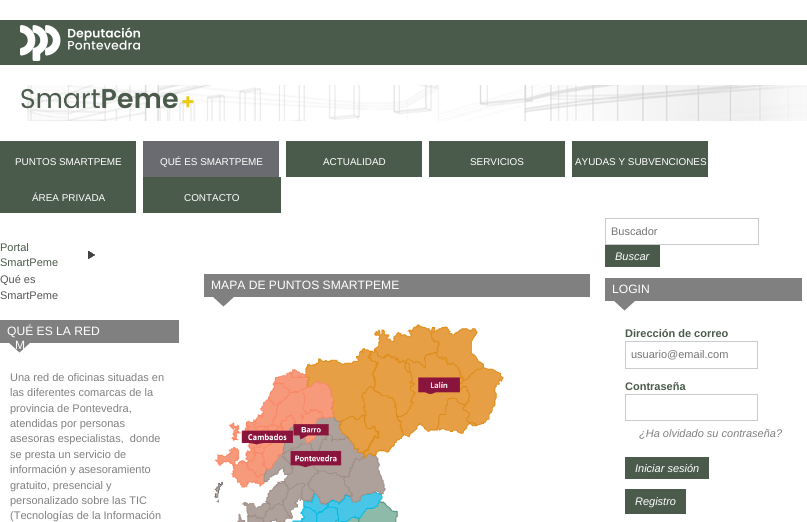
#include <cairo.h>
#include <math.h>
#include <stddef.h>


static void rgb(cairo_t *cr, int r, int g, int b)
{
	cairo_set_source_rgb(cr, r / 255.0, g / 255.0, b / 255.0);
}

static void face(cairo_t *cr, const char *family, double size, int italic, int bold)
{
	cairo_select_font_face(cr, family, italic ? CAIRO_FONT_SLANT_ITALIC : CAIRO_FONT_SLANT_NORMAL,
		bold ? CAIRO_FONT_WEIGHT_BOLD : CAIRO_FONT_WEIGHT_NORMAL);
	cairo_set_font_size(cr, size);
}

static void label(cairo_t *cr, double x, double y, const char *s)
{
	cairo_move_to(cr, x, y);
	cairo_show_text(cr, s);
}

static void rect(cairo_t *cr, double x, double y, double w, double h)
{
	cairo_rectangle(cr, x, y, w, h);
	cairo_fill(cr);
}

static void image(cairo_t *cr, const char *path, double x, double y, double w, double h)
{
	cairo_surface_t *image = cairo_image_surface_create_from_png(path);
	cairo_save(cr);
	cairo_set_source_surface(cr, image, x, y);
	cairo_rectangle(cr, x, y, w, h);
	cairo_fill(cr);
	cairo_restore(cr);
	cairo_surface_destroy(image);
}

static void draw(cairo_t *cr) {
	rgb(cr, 255, 255, 255);
	cairo_paint(cr);
	rgb(cr, 74, 90, 75);
	rect(cr, 0, 20, 807, 45);
	image(cr, "image0.png", 20, 25, 120, 36);
	image(cr, "image1.png", 27, 85, 780, 36);
	image(cr, "image2.png", 21, 88, 173, 21);
	rect(cr, 0, 141, 136, 72);
	face(cr, "Liberation Sans", 9.9, 0, 0);
	rgb(cr, 255, 255, 255);
	label(cr, 15, 165, "PUNTOS SMARTPEME");
	rgb(cr, 106, 107, 112);
	rect(cr, 143, 141, 136, 36);
	rgb(cr, 255, 255, 255);
	label(cr, 160, 165, "QUÉ ES SMARTPEME");
	rgb(cr, 74, 90, 75);
	rect(cr, 286, 141, 136, 36);
	rgb(cr, 255, 255, 255);
	label(cr, 323, 165, "ACTUALIDAD");
	rgb(cr, 74, 90, 75);
	rect(cr, 429, 141, 136, 36);
	rgb(cr, 255, 255, 255);
	label(cr, 470, 165, "SERVICIOS");
	rgb(cr, 74, 90, 75);
	rect(cr, 572, 141, 136, 36);
	rgb(cr, 255, 255, 255);
	label(cr, 575, 165, "AYUDAS Y SUBVENCIONES");
	label(cr, 32, 201, "ÁREA PRIVADA");
	rgb(cr, 74, 90, 75);
	rect(cr, 143, 177, 138, 36);
	rgb(cr, 255, 255, 255);
	label(cr, 184, 201, "CONTACTO");
	image(cr, "image3.png", 88, 251, 7, 8);
	face(cr, "Liberation Sans", 11, 0, 0);
	rgb(cr, 74, 90, 75);
	label(cr, 0, 251, "Portal");
	label(cr, 0, 266, "SmartPeme");
	rgb(cr, 85, 85, 85);
	label(cr, 0, 283, "Qué es");
	label(cr, 0, 299, "SmartPeme");
	rgb(cr, 128, 128, 128);
	rect(cr, 0, 320, 179, 23);
	image(cr, "image4.png", 0, 343, 179, 15);
	face(cr, "Liberation Sans", 12.1, 0, 0);
	rgb(cr, 255, 255, 255);
	label(cr, 7, 335, "QUÉ ES LA RED");
	label(cr, 15, 349, "M");
	face(cr, "Liberation Sans", 11, 0, 0);
	rgb(cr, 128, 128, 128);
	label(cr, 10, 381, "Una red de oficinas situadas en");
	label(cr, 10, 396, "las diferentes comarcas de la");
	label(cr, 10, 412, "provincia de Pontevedra,");
	label(cr, 10, 427, "atendidas por personas");
	label(cr, 10, 442, "asesoras especialistas,  donde");
	label(cr, 10, 458, "se presta un servicio de");
	label(cr, 10, 473, "información y asesoramiento");
	label(cr, 10, 489, "gratuito, presencial y");
	label(cr, 10, 504, "personalizado sobre las TIC");
	label(cr, 10, 519, "(Tecnologías de la Información");
	rect(cr, 204, 274, 386, 23);
	image(cr, "image5.png", 204, 297, 386, 15);
	face(cr, "Liberation Sans", 12.1, 0, 0);
	rgb(cr, 255, 255, 255);
	label(cr, 211, 289, "MAPA DE PUNTOS SMARTPEME");
	image(cr, "image6.png", 214, 324, 290, 198);
	cairo_rectangle(cr, 605.5, 218.5, 153, 26);
	rgb(cr, 202, 203, 204);
	cairo_set_line_width(cr, 1);
	cairo_stroke(cr);
	face(cr, "Liberation Sans", 11, 0, 0);
	rgb(cr, 117, 117, 117);
	label(cr, 611, 235, "Buscador");
	rgb(cr, 74, 90, 75);
	rect(cr, 605, 245, 55, 22);
	face(cr, "Liberation Sans", 11, 1, 0);
	rgb(cr, 255, 255, 255);
	label(cr, 615, 260, "Buscar");
	rgb(cr, 128, 128, 128);
	rect(cr, 605, 278, 197, 23);
	image(cr, "image7.png", 605, 301, 197, 15);
	face(cr, "Liberation Sans", 12.1, 0, 0);
	rgb(cr, 255, 255, 255);
	label(cr, 612, 293, "LOGIN");
	face(cr, "Liberation Sans", 11, 0, 1);
	rgb(cr, 74, 90, 75);
	label(cr, 625, 337, "Dirección de correo");
	cairo_rectangle(cr, 625.5, 341.5, 132, 27);
	rgb(cr, 202, 203, 204);
	cairo_stroke(cr);
	face(cr, "Liberation Sans", 11, 0, 0);
	rgb(cr, 117, 117, 117);
	label(cr, 631, 358, "usuario@email.com");
	face(cr, "Liberation Sans", 11, 0, 1);
	rgb(cr, 74, 90, 75);
	label(cr, 625, 390, "Contraseña");
	cairo_rectangle(cr, 625.5, 394.5, 132, 26);
	rgb(cr, 202, 203, 204);
	cairo_stroke(cr);
	face(cr, "Liberation Sans", 11, 1, 0);
	rgb(cr, 128, 128, 128);
	label(cr, 639, 437, "¿Ha olvidado su contraseña?");
	rgb(cr, 74, 90, 75);
	rect(cr, 625, 457, 84, 22);
	rgb(cr, 255, 255, 255);
	label(cr, 635, 472, "Iniciar sesión");
	rgb(cr, 74, 90, 75);
	rect(cr, 625, 489, 61, 25);
	rgb(cr, 255, 255, 255);
	label(cr, 635, 505, "Registro");
}

int main(void) {
	cairo_surface_t *surface = cairo_image_surface_create(CAIRO_FORMAT_RGB24, 807, 522);
	cairo_t *cr = cairo_create(surface);
	cairo_font_options_t *options = cairo_font_options_create();
	cairo_font_options_set_hint_metrics(options, CAIRO_HINT_METRICS_OFF);
	cairo_font_options_set_hint_style(options, CAIRO_HINT_STYLE_NONE);
	cairo_set_font_options(cr, options);
	cairo_set_miter_limit(cr, 4);
	draw(cr);
	cairo_surface_write_to_png(surface, "render.png");
	cairo_font_options_destroy(options);
	cairo_destroy(cr);
	cairo_surface_destroy(surface);
	return 0;
}
